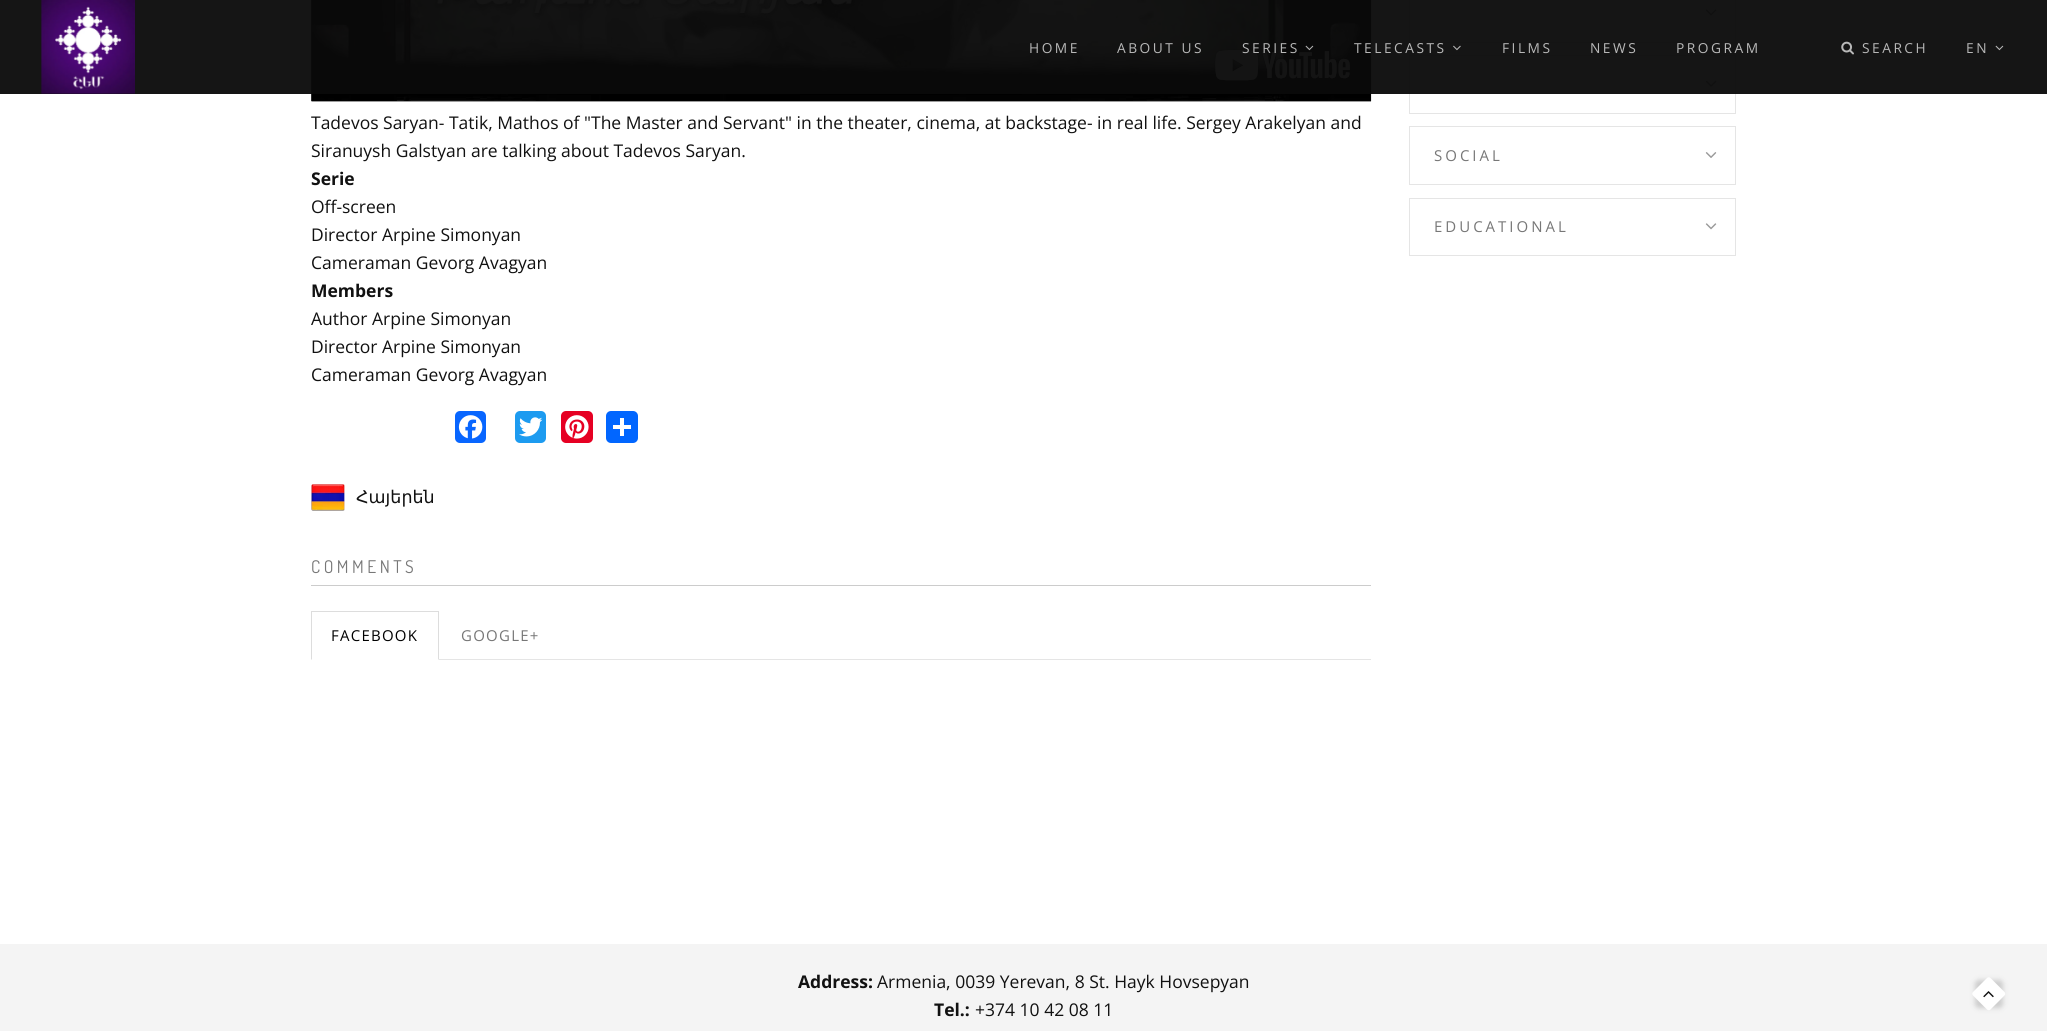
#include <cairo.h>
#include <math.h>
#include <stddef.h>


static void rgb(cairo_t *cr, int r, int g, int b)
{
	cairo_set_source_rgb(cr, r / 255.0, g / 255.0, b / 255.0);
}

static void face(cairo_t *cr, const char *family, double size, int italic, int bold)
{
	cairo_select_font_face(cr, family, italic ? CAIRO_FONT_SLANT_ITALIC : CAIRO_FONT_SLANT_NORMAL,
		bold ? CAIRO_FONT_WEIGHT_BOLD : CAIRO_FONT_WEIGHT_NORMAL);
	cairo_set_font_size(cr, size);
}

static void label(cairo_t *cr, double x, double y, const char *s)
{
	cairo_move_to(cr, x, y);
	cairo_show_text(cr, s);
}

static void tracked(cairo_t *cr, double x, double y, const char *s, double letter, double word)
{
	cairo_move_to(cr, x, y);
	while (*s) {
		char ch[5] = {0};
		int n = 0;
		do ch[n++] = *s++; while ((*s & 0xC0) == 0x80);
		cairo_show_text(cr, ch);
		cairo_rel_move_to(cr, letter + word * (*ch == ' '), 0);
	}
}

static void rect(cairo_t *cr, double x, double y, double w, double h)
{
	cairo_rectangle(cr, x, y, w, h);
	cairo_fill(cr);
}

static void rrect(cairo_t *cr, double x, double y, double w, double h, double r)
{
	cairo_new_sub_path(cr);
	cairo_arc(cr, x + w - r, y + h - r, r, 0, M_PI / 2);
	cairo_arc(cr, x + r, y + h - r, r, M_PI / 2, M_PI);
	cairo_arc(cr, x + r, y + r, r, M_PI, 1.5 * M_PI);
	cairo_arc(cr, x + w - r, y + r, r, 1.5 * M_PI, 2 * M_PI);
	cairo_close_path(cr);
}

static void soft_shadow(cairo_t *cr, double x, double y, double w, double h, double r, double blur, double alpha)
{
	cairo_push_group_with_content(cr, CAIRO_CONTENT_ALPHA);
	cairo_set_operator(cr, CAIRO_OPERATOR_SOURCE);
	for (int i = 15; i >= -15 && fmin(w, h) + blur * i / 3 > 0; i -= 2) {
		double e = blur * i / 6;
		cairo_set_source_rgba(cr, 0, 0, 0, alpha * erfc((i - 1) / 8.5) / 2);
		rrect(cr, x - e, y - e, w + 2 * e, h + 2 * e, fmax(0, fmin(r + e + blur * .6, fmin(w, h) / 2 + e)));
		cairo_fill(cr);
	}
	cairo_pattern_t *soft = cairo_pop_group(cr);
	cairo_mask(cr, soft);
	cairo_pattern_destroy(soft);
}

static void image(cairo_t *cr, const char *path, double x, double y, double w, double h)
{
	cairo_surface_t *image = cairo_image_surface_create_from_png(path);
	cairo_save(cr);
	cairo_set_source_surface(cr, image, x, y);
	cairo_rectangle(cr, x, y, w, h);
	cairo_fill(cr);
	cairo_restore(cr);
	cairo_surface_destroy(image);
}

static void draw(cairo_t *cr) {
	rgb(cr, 255, 255, 255);
	cairo_paint(cr);
	image(cr, "image5.png", 311, 0, 1061, 102);
	cairo_rectangle(cr, 1409.5, -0.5, 326, 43);
	rgb(cr, 229, 229, 229);
	cairo_set_line_width(cr, 1);
	cairo_stroke(cr);
	image(cr, "image10.png", 1705, 9, 12, 7);
	cairo_rectangle(cr, 1409.5, 55.5, 326, 58);
	cairo_stroke(cr);
	image(cr, "image11.png", 1705, 80, 12, 7);
	cairo_set_source_rgba(cr, 0.039, 0.039, 0.039, 0.95);
	rect(cr, 0, 0, 2047, 94);
	image(cr, "image0.png", 41, 0, 94, 94);
	face(cr, "Open Sans", 13.75, 0, 0);
	rgb(cr, 184, 184, 184);
	tracked(cr, 1029, 53, "HOME", 2.5, 0);
	tracked(cr, 1117, 53, "ABOUT US", 2.5, 0);
	tracked(cr, 1242, 53, "SERIES", 2.5, 0);
	image(cr, "image1.png", 1305, 45, 9, 6);
	tracked(cr, 1354, 53, "TELECASTS", 2.5, 0);
	image(cr, "image2.png", 1453, 45, 8, 6);
	tracked(cr, 1502, 53, "FILMS", 2.5, 0);
	tracked(cr, 1590, 53, "NEWS", 2.5, 0);
	tracked(cr, 1676, 53, "PROGRAM", 2.5, 0);
	image(cr, "image3.png", 1841, 41, 13, 14);
	tracked(cr, 1862, 53, "SEARCH", 2.5, 0);
	tracked(cr, 1966, 53, "EN", 2.5, 0);
	image(cr, "image4.png", 1995, 45, 9, 6);
	face(cr, "Open Sans", 17.5, 0, 0);
	rgb(cr, 17, 17, 17);
	label(cr, 311, 129, "Tadevos Saryan- Tatik, Mathos of \"The Master and Servant\" in the theater, cinema, at backstage- in real life. Sergey Arakelyan and");
	label(cr, 311, 157, "Siranuysh Galstyan are talking about Tadevos Saryan.");
	face(cr, "Open Sans", 17.5, 0, 1);
	label(cr, 311, 185, "Serie");
	face(cr, "Open Sans", 17.5, 0, 0);
	label(cr, 311, 213, "Off-screen");
	label(cr, 311, 241, "Director Arpine Simonyan");
	label(cr, 311, 269, "Cameraman Gevorg Avagyan");
	face(cr, "Open Sans", 17.5, 0, 1);
	label(cr, 311, 297, "Members");
	face(cr, "Open Sans", 17.5, 0, 0);
	label(cr, 311, 325, "Author Arpine Simonyan");
	label(cr, 311, 353, "Director Arpine Simonyan");
	label(cr, 311, 381, "Cameraman Gevorg Avagyan");
	rgb(cr, 8, 102, 255);
	rrect(cr, 455, 411, 31, 32, 5);
	cairo_fill(cr);
	image(cr, "image6.png", 458, 415, 25, 24);
	rgb(cr, 29, 155, 240);
	rrect(cr, 515, 411, 31, 32, 5);
	cairo_fill(cr);
	image(cr, "image7.png", 519, 417, 24, 20);
	rgb(cr, 230, 0, 35);
	rrect(cr, 561, 411, 32, 32, 5);
	cairo_fill(cr);
	image(cr, "image8.png", 565, 415, 24, 24);
	rgb(cr, 1, 102, 255);
	rrect(cr, 606, 411, 32, 32, 5);
	cairo_fill(cr);
	rgb(cr, 255, 255, 255);
	rect(cr, 620, 418, 4, 18);
	rect(cr, 613, 425, 18, 4);
	image(cr, "image9.png", 311, 484, 34, 27);
	face(cr, "DejaVu Sans", 17.5, 0, 0);
	rgb(cr, 17, 17, 17);
	label(cr, 356, 503, "Հայերեն");
	rgb(cr, 204, 204, 204);
	rect(cr, 311, 585, 1060, 1);
	face(cr, "Dosis", 17.5, 0, 0);
	rgb(cr, 119, 119, 119);
	tracked(cr, 311, 573, "COMMENTS", 3.5, 0);
	rgb(cr, 229, 229, 229);
	rect(cr, 439, 659, 932, 1);
	rgb(cr, 221, 221, 221);
	rect(cr, 311, 611, 128, 1);
	cairo_new_path(cr);
	cairo_move_to(cr, 439, 611);
	cairo_line_to(cr, 439, 660);
	cairo_line_to(cr, 438, 659);
	cairo_line_to(cr, 438, 612);
	cairo_close_path(cr);
	cairo_fill(cr);
	cairo_new_path(cr);
	cairo_move_to(cr, 311, 660);
	cairo_line_to(cr, 311, 611);
	cairo_line_to(cr, 312, 612);
	cairo_line_to(cr, 312, 659);
	cairo_close_path(cr);
	cairo_fill(cr);
	face(cr, "Open Sans", 15, 0, 0);
	rgb(cr, 0, 0, 0);
	tracked(cr, 331, 641, "FACEBOOK", 1.25, 0);
	rgb(cr, 119, 119, 119);
	tracked(cr, 461, 641, "GOOGLE+", 1.25, 0);
	cairo_rectangle(cr, 1409.5, 126.5, 326, 58);
	rgb(cr, 229, 229, 229);
	cairo_stroke(cr);
	rgb(cr, 119, 119, 119);
	tracked(cr, 1434, 161, "SOCIAL", 3, 0);
	image(cr, "image12.png", 1705, 152, 12, 6);
	cairo_rectangle(cr, 1409.5, 198.5, 326, 57);
	rgb(cr, 229, 229, 229);
	cairo_stroke(cr);
	rgb(cr, 119, 119, 119);
	tracked(cr, 1434, 232, "EDUCATIONAL", 3, 0);
	image(cr, "image13.png", 1705, 223, 12, 7);
	rgb(cr, 244, 244, 244);
	rect(cr, 0, 944, 2047, 87);
	face(cr, "Open Sans", 17.5, 0, 1);
	rgb(cr, 17, 17, 17);
	label(cr, 798, 988, "Address:");
	face(cr, "Open Sans", 17.5, 0, 0);
	label(cr, 877, 988, "Armenia, 0039 Yerevan, 8 St. Hayk Hovsepyan");
	face(cr, "Open Sans", 17.5, 0, 1);
	label(cr, 934, 1016, "Tel.:");
	face(cr, "Open Sans", 17.5, 0, 0);
	label(cr, 975, 1016, "+374 10 42 08 11");
	rgb(cr, 205, 205, 205);
	soft_shadow(cr, 1975, 980, 28, 28, 4, 2.5, 1);
	rgb(cr, 255, 255, 255);
	cairo_new_path(cr);
	cairo_move_to(cr, 1990.5, 978);
	cairo_line_to(cr, 2004.5, 992);
	cairo_curve_to(cr, 2005.5, 993, 2005.5, 994.5, 2004.5, 995.5);
	cairo_line_to(cr, 1990.5, 1009.5);
	cairo_curve_to(cr, 1989.5, 1010.5, 1988, 1010.5, 1987, 1009.5);
	cairo_line_to(cr, 1973, 995.5);
	cairo_curve_to(cr, 1972, 994.5, 1972, 993, 1973, 992);
	cairo_line_to(cr, 1987, 978);
	cairo_curve_to(cr, 1988, 977, 1989.5, 977, 1990.5, 978);
	cairo_close_path(cr);
	cairo_fill(cr);
	image(cr, "image14.png", 1983, 991, 11, 7);
}

int main(void) {
	cairo_surface_t *surface = cairo_image_surface_create(CAIRO_FORMAT_RGB24, 2047, 1031);
	cairo_t *cr = cairo_create(surface);
	cairo_font_options_t *options = cairo_font_options_create();
	cairo_font_options_set_hint_metrics(options, CAIRO_HINT_METRICS_OFF);
	cairo_font_options_set_hint_style(options, CAIRO_HINT_STYLE_NONE);
	cairo_set_font_options(cr, options);
	cairo_set_miter_limit(cr, 4);
	draw(cr);
	cairo_surface_write_to_png(surface, "render.png");
	cairo_font_options_destroy(options);
	cairo_destroy(cr);
	cairo_surface_destroy(surface);
	return 0;
}
